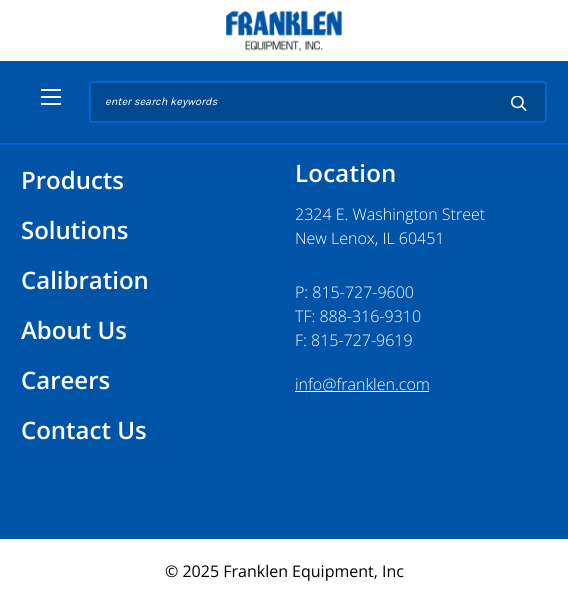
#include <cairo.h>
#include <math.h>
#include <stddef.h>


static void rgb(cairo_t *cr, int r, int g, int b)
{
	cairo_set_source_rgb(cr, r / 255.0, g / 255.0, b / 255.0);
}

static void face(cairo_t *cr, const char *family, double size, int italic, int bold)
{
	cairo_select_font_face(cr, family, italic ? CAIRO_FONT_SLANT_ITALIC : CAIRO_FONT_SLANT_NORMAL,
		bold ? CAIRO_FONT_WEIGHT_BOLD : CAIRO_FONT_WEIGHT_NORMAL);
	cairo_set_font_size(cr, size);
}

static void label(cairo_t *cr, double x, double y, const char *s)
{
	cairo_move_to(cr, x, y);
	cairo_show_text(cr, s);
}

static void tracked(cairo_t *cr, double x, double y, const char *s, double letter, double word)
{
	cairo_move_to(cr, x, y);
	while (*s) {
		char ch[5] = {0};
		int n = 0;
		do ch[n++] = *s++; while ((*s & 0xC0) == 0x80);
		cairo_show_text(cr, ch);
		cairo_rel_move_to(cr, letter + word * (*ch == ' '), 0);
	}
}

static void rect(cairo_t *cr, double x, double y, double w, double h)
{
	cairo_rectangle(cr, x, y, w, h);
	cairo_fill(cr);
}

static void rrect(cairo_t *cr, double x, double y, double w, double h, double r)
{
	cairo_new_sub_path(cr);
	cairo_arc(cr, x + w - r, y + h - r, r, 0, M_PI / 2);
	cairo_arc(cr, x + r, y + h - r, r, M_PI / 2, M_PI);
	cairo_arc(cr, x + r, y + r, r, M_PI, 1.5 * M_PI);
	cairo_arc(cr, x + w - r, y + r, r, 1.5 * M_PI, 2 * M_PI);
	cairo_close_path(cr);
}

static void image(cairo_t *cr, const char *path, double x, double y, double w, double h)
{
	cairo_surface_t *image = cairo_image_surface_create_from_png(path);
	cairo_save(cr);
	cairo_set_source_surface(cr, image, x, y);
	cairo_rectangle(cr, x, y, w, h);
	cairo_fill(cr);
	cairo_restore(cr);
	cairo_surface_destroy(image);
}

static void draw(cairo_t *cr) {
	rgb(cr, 255, 255, 255);
	cairo_paint(cr);
	image(cr, "image0.png", 226, 10, 117, 42);
	rgb(cr, 0, 84, 168);
	rect(cr, 0, 61, 568, 82);
	rgb(cr, 255, 255, 255);
	rect(cr, 41, 96, 20, 2);
	rect(cr, 41, 89, 20, 2);
	rect(cr, 41, 103, 20, 2);
	rgb(cr, 0, 103, 206);
	rect(cr, 0, 143, 568, 2);
	rgb(cr, 0, 72, 144);
	rrect(cr, 90, 82, 456, 40, 3);
	cairo_fill_preserve(cr);
	rgb(cr, 0, 103, 206);
	cairo_stroke(cr);
	face(cr, "Karla", 11, 1, 0);
	rgb(cr, 255, 255, 255);
	label(cr, 105, 105, "enter search keywords");
	image(cr, "image1.png", 511, 96, 16, 16);
	rgb(cr, 0, 84, 168);
	rect(cr, 0, 145, 568, 394);
	face(cr, "Open Sans SemiBold", 24, 0, 0);
	rgb(cr, 255, 255, 255);
	label(cr, 21, 189, "Products");
	label(cr, 21, 239, "Solutions");
	label(cr, 21, 289, "Calibration");
	label(cr, 21, 339, "About Us");
	label(cr, 21, 389, "Careers");
	label(cr, 21, 439, "Contact Us");
	tracked(cr, 295, 182, "Location", 0.25, 0);
	face(cr, "Open Sans Light", 16, 0, 0);
	label(cr, 295, 220, "2324 E. Washington Street");
	label(cr, 295, 244, "New Lenox, IL 60451");
	label(cr, 295, 298, "P: 815-727-9600");
	label(cr, 295, 322, "TF: 888-316-9310");
	label(cr, 295, 346, "F: 815-727-9619");
	rect(cr, 295, 391, 134, 1);
	label(cr, 295, 390, "info@franklen.com");
	face(cr, "Open Sans", 16, 0, 0);
	rgb(cr, 0, 0, 0);
	label(cr, 165, 577, "© 2025 Franklen Equipment, Inc");
}

int main(void) {
	cairo_surface_t *surface = cairo_image_surface_create(CAIRO_FORMAT_RGB24, 568, 603);
	cairo_t *cr = cairo_create(surface);
	cairo_font_options_t *options = cairo_font_options_create();
	cairo_font_options_set_hint_metrics(options, CAIRO_HINT_METRICS_OFF);
	cairo_font_options_set_hint_style(options, CAIRO_HINT_STYLE_NONE);
	cairo_set_font_options(cr, options);
	cairo_set_miter_limit(cr, 4);
	draw(cr);
	cairo_surface_write_to_png(surface, "render.png");
	cairo_font_options_destroy(options);
	cairo_destroy(cr);
	cairo_surface_destroy(surface);
	return 0;
}
